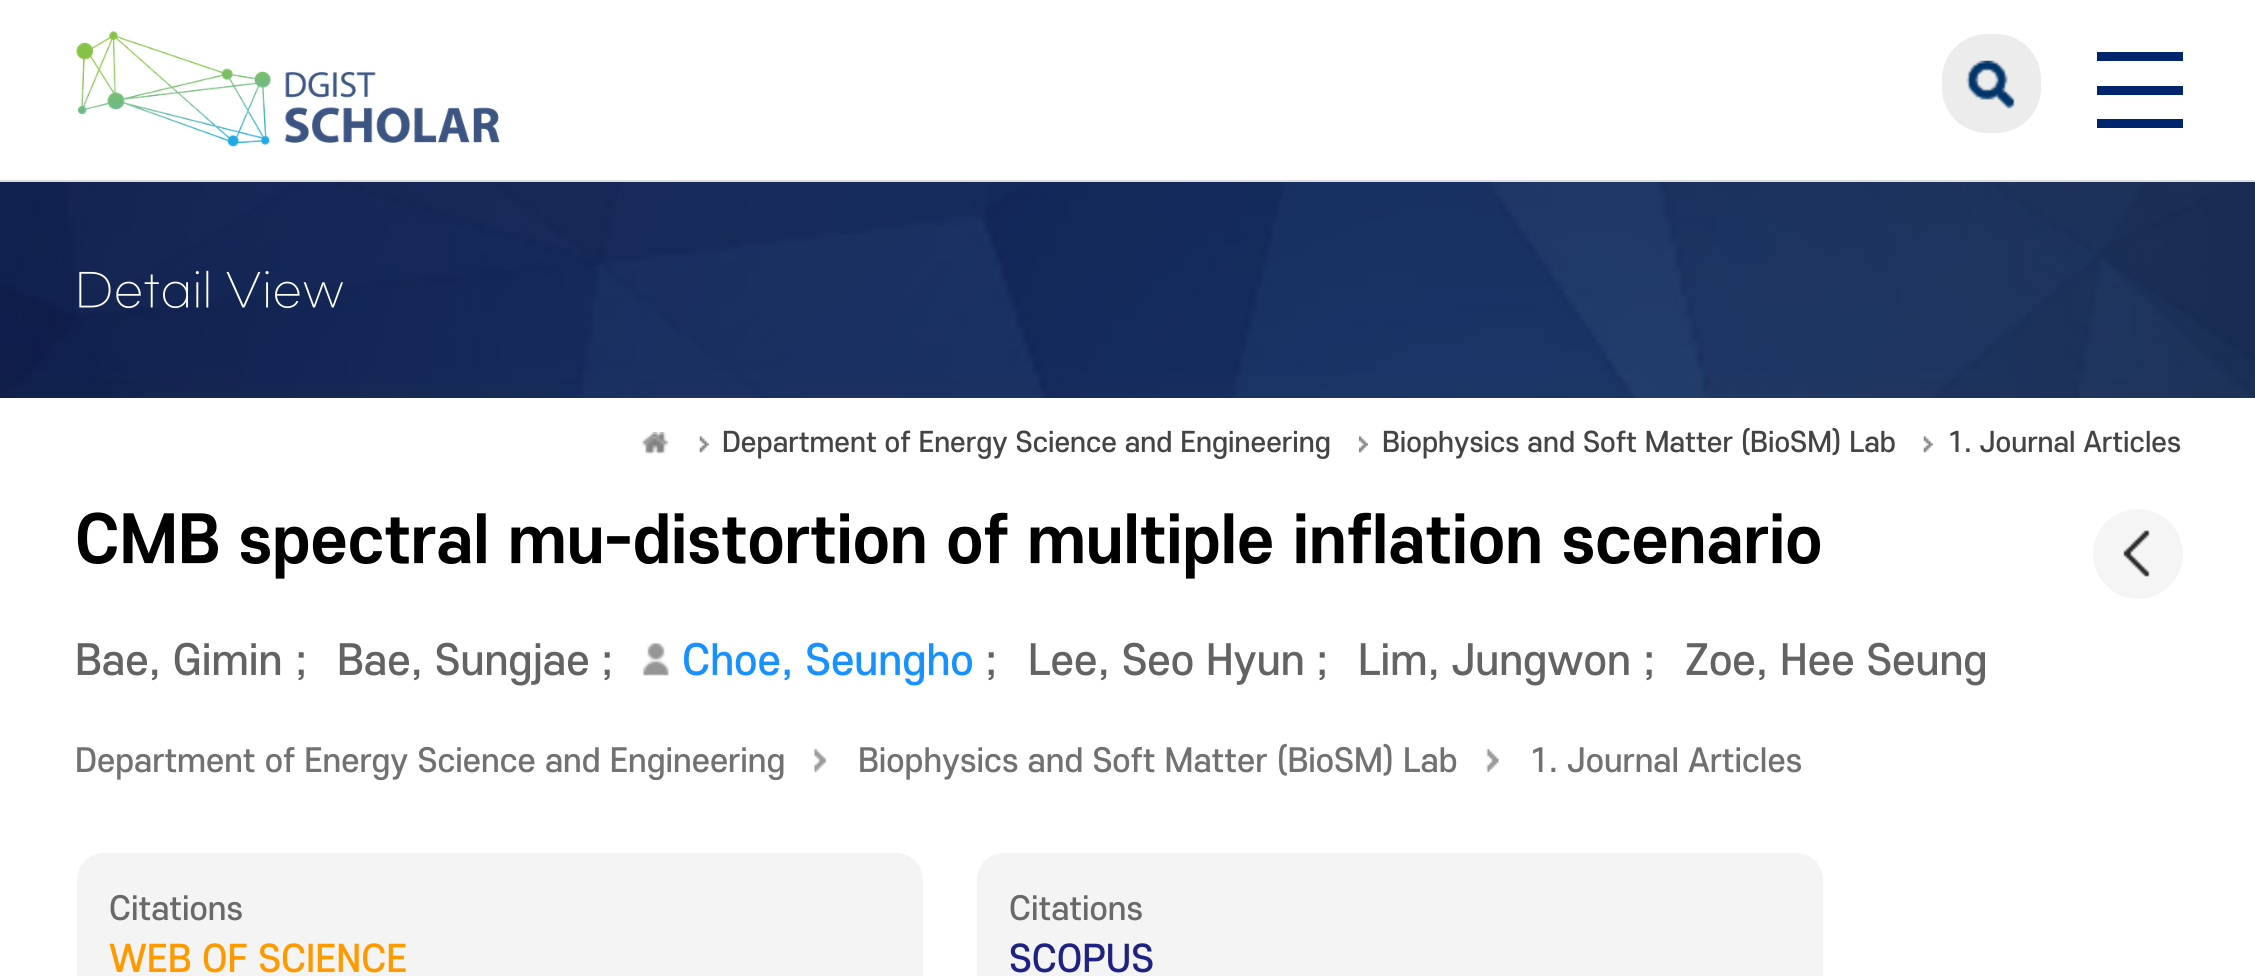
#include <cairo.h>
#include <math.h>
#include <stddef.h>


static void rgb(cairo_t *cr, int r, int g, int b)
{
	cairo_set_source_rgb(cr, r / 255.0, g / 255.0, b / 255.0);
}

static void face(cairo_t *cr, const char *family, double size, int italic, int bold)
{
	cairo_select_font_face(cr, family, italic ? CAIRO_FONT_SLANT_ITALIC : CAIRO_FONT_SLANT_NORMAL,
		bold ? CAIRO_FONT_WEIGHT_BOLD : CAIRO_FONT_WEIGHT_NORMAL);
	cairo_set_font_size(cr, size);
}

static void label(cairo_t *cr, double x, double y, const char *s)
{
	cairo_move_to(cr, x, y);
	cairo_show_text(cr, s);
}

static void rect(cairo_t *cr, double x, double y, double w, double h)
{
	cairo_rectangle(cr, x, y, w, h);
	cairo_fill(cr);
}

static void rrect(cairo_t *cr, double x, double y, double w, double h, double r)
{
	cairo_new_sub_path(cr);
	cairo_arc(cr, x + w - r, y + h - r, r, 0, M_PI / 2);
	cairo_arc(cr, x + r, y + h - r, r, M_PI / 2, M_PI);
	cairo_arc(cr, x + r, y + r, r, M_PI, 1.5 * M_PI);
	cairo_arc(cr, x + w - r, y + r, r, 1.5 * M_PI, 2 * M_PI);
	cairo_close_path(cr);
}

static void soft_shadow(cairo_t *cr, double x, double y, double w, double h, double r, double blur, double alpha)
{
	cairo_push_group_with_content(cr, CAIRO_CONTENT_ALPHA);
	cairo_set_operator(cr, CAIRO_OPERATOR_SOURCE);
	for (int i = 15; i >= -15 && fmin(w, h) + blur * i / 3 > 0; i -= 2) {
		double e = blur * i / 6;
		cairo_set_source_rgba(cr, 0, 0, 0, alpha * erfc((i - 1) / 8.5) / 2);
		rrect(cr, x - e, y - e, w + 2 * e, h + 2 * e, fmax(0, fmin(r + e + blur * .6, fmin(w, h) / 2 + e)));
		cairo_fill(cr);
	}
	cairo_pattern_t *soft = cairo_pop_group(cr);
	cairo_mask(cr, soft);
	cairo_pattern_destroy(soft);
}

static void image(cairo_t *cr, const char *path, double x, double y, double w, double h)
{
	cairo_surface_t *image = cairo_image_surface_create_from_png(path);
	cairo_save(cr);
	cairo_set_source_surface(cr, image, x, y);
	cairo_rectangle(cr, x, y, w, h);
	cairo_fill(cr);
	cairo_restore(cr);
	cairo_surface_destroy(image);
}

static void draw(cairo_t *cr) {
	rgb(cr, 255, 255, 255);
	cairo_paint(cr);
	rgb(cr, 221, 221, 221);
	rect(cr, 0, 180, 2255, 2);
	image(cr, "image0.png", 76, 31, 424, 116);
	rgb(cr, 236, 236, 236);
	rrect(cr, 1942, 34, 99, 99, 45);
	cairo_fill(cr);
	image(cr, "image1.png", 1966, 60, 49, 49);
	rgb(cr, 0, 37, 108);
	rect(cr, 2097, 52, 86, 9);
	rect(cr, 2097, 86, 86, 9);
	rect(cr, 2097, 119, 86, 9);
	image(cr, "image2.png", 0, 182, 2255, 216);
	face(cr, "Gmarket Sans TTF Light", 45, 0, 0);
	rgb(cr, 255, 255, 255);
	label(cr, 75, 304, "Detail View");
	rgb(cr, 72, 72, 72);
	soft_shadow(cr, 0, 403, 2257, 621, 0, 16, 0.2);
	rgb(cr, 255, 255, 255);
	rect(cr, 0, 398, 2255, 578);
	image(cr, "image3.png", 641, 432, 28, 23);
	image(cr, "image4.png", 699, 436, 10, 17);
	face(cr, "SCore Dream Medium", 27, 0, 0);
	rgb(cr, 68, 68, 68);
	label(cr, 722, 452, "Department of Energy Science and Engineering");
	image(cr, "image5.png", 1359, 436, 9, 17);
	label(cr, 1382, 452, "Biophysics and Soft Matter (BioSM) Lab");
	image(cr, "image6.png", 1923, 436, 10, 17);
	label(cr, 1947, 452, "1. Journal Articles");
	face(cr, "SCore Dream", 63, 0, 1);
	rgb(cr, 0, 0, 0);
	label(cr, 75, 563, "CMB spectral mu-distortion of multiple inflation scenario");
	face(cr, "SCore Dream Medium", 40.5, 0, 0);
	rgb(cr, 99, 99, 99);
	label(cr, 75, 675, "Bae, Gimin");
	label(cr, 295, 675, ";");
	label(cr, 337, 675, "Bae, Sungjae");
	label(cr, 601, 675, ";");
	image(cr, "image7.png", 643, 643, 26, 33);
	rgb(cr, 23, 145, 255);
	label(cr, 682, 675, "Choe, Seungho");
	rgb(cr, 99, 99, 99);
	label(cr, 985, 675, ";");
	label(cr, 1028, 675, "Lee, Seo Hyun");
	label(cr, 1316, 675, ";");
	label(cr, 1358, 675, "Lim, Jungwon");
	label(cr, 1643, 675, ";");
	label(cr, 1685, 675, "Zoe, Hee Seung");
	face(cr, "SCore Dream Medium", 31.5, 0, 0);
	rgb(cr, 114, 112, 112);
	label(cr, 75, 772, "Department of Energy Science and Engineering");
	image(cr, "image8.png", 814, 748, 13, 25);
	label(cr, 858, 772, "Biophysics and Soft Matter (BioSM) Lab");
	image(cr, "image9.png", 1486, 749, 13, 23);
	label(cr, 1529, 772, "1. Journal Articles");
	rgb(cr, 244, 244, 244);
	rrect(cr, 77, 853, 846, 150, 27);
	cairo_fill(cr);
	rgb(cr, 105, 105, 105);
	label(cr, 109, 920, "Citations");
	face(cr, "SCore Dream Medium", 36, 0, 0);
	rgb(cr, 255, 153, 0);
	label(cr, 109, 972, "WEB OF SCIENCE");
	rgb(cr, 244, 244, 244);
	rrect(cr, 977, 853, 846, 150, 27);
	cairo_fill(cr);
	face(cr, "SCore Dream Medium", 31.5, 0, 0);
	rgb(cr, 105, 105, 105);
	label(cr, 1009, 920, "Citations");
	face(cr, "SCore Dream Medium", 36, 0, 0);
	rgb(cr, 32, 34, 131);
	label(cr, 1009, 972, "SCOPUS");
	rgb(cr, 245, 245, 245);
	cairo_new_path(cr);
	cairo_arc(cr, 2138, 554, 45, 0, 2 * M_PI);
	cairo_fill(cr);
	image(cr, "image10.png", 2123, 530, 27, 47);
}

int main(void) {
	cairo_surface_t *surface = cairo_image_surface_create(CAIRO_FORMAT_RGB24, 2255, 976);
	cairo_t *cr = cairo_create(surface);
	cairo_font_options_t *options = cairo_font_options_create();
	cairo_font_options_set_hint_metrics(options, CAIRO_HINT_METRICS_OFF);
	cairo_font_options_set_hint_style(options, CAIRO_HINT_STYLE_NONE);
	cairo_set_font_options(cr, options);
	cairo_set_miter_limit(cr, 4);
	draw(cr);
	cairo_surface_write_to_png(surface, "render.png");
	cairo_font_options_destroy(options);
	cairo_destroy(cr);
	cairo_surface_destroy(surface);
	return 0;
}
